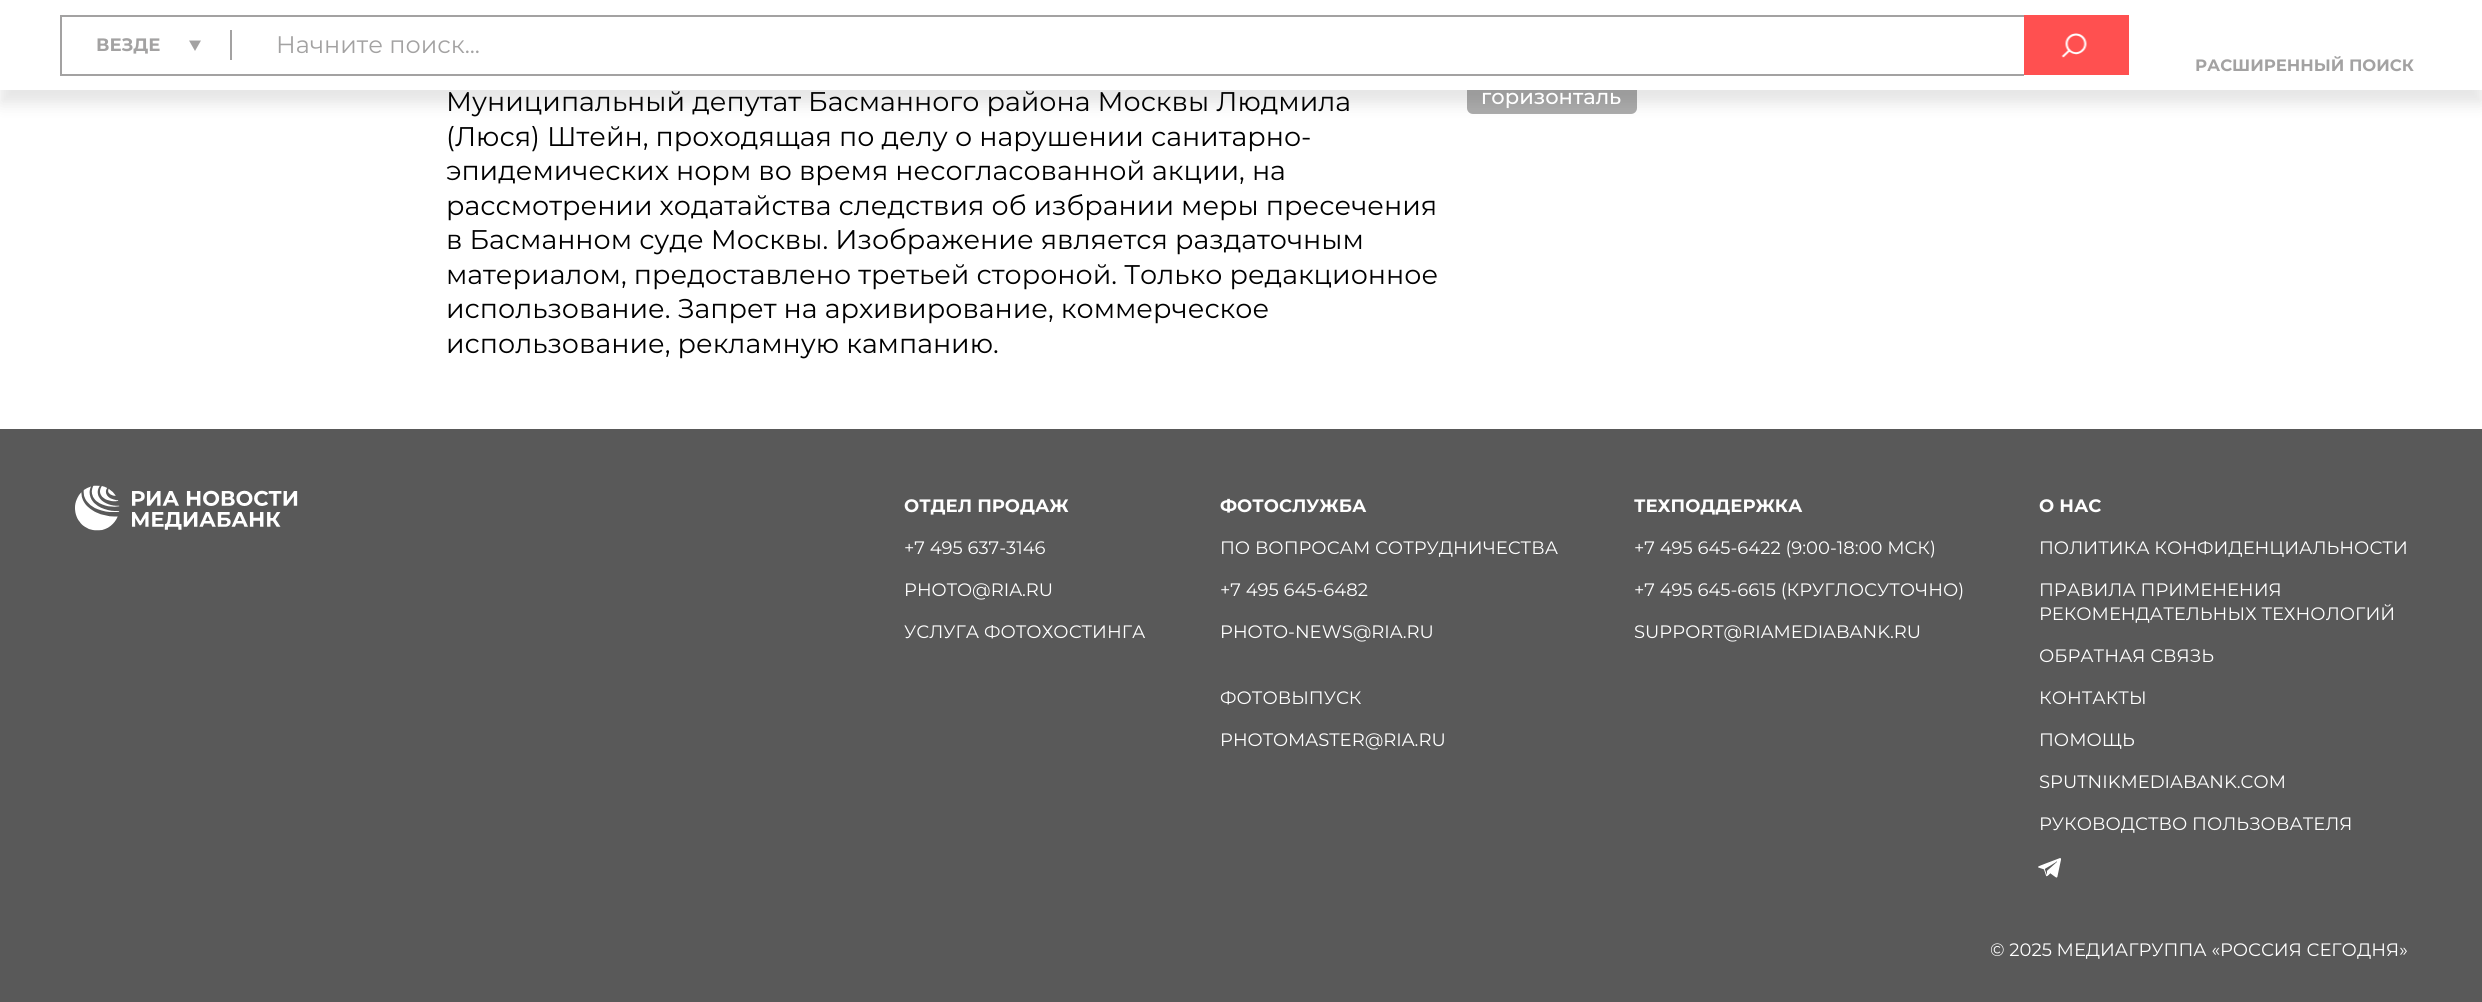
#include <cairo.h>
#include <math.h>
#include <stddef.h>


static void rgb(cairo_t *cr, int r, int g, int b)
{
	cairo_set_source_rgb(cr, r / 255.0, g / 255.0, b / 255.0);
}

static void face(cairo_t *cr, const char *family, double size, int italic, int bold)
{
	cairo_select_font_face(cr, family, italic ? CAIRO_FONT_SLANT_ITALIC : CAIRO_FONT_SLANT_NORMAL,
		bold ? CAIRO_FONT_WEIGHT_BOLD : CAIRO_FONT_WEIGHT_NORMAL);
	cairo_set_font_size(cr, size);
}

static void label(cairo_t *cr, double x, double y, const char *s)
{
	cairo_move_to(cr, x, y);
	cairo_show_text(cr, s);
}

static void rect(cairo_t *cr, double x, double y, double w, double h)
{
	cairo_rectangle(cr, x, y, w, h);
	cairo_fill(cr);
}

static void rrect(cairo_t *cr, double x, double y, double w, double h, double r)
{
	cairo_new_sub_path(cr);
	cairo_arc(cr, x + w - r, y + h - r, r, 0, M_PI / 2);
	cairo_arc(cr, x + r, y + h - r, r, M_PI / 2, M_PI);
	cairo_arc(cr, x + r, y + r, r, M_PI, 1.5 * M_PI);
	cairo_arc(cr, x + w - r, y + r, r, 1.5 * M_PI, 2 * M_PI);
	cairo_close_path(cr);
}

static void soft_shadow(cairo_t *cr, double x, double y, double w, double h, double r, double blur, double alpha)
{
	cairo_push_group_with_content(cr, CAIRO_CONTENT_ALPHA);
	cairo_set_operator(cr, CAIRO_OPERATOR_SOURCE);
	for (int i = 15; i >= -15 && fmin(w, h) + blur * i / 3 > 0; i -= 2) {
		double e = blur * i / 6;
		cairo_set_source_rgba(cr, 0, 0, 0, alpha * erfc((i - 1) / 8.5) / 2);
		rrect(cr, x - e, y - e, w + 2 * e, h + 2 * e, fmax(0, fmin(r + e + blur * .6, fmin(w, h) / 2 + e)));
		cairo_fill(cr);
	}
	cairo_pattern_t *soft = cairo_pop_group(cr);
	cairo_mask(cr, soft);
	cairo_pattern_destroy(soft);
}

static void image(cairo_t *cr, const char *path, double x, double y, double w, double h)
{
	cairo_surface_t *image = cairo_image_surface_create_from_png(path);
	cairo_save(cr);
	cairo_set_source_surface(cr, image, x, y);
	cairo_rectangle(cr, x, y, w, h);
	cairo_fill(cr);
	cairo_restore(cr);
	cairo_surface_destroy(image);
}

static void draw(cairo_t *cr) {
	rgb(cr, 255, 255, 255);
	cairo_paint(cr);
	rgb(cr, 172, 172, 172);
	rrect(cr, 1467, 80, 170, 34, 6);
	cairo_fill(cr);
	rgb(cr, 0, 0, 0);
	soft_shadow(cr, 0, -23, 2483, 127, 0, 7.5, 0.1);
	rgb(cr, 255, 255, 255);
	rect(cr, 0, 0, 2482, 90);
	rgb(cr, 163, 162, 162);
	rect(cr, 60, 15, 1964, 2);
	rect(cr, 60, 74, 1964, 2);
	rect(cr, 60, 15, 2, 60);
	face(cr, "Montserrat", 18, 0, 1);
	label(cr, 96, 51, "ВЕЗДЕ");
	cairo_new_path(cr);
	cairo_move_to(cr, 189, 40.5);
	cairo_line_to(cr, 201, 40.5);
	cairo_line_to(cr, 195, 51);
	cairo_close_path(cr);
	cairo_fill(cr);
	rect(cr, 230, 30, 2, 30);
	face(cr, "Montserrat", 24, 0, 0);
	label(cr, 276, 53, "Начните поиск...");
	rgb(cr, 255, 80, 80);
	rect(cr, 2024, 15, 105, 60);
	image(cr, "image0.png", 2061, 33, 26, 25);
	face(cr, "Montserrat", 16.5, 0, 1);
	rgb(cr, 163, 162, 162);
	label(cr, 2195, 71, "РАСШИРЕННЫЙ ПОИСК");
	face(cr, "Montserrat", 27, 0, 0);
	rgb(cr, 0, 0, 0);
	label(cr, 446, 111, "Муниципальный депутат Басманного района Москвы Людмила");
	label(cr, 446, 146, "(Люся) Штейн, проходящая по делу о нарушении санитарно-");
	label(cr, 446, 180, "эпидемических норм во время несогласованной акции, на");
	label(cr, 446, 215, "рассмотрении ходатайства следствия об избрании меры пресечения");
	label(cr, 446, 249, "в Басманном суде Москвы. Изображение является раздаточным");
	label(cr, 446, 284, "материалом, предоставлено третьей стороной. Только редакционное");
	label(cr, 446, 318, "использование. Запрет на архивирование, коммерческое");
	label(cr, 446, 353, "использование, рекламную кампанию.");
	face(cr, "Montserrat Medium", 21, 0, 0);
	rgb(cr, 255, 255, 255);
	label(cr, 1481, 104, "горизонталь");
	rgb(cr, 89, 89, 89);
	rect(cr, 0, 429, 2482, 573);
	image(cr, "image1.png", 75, 485, 223, 46);
	face(cr, "Montserrat", 18, 0, 1);
	rgb(cr, 255, 255, 255);
	label(cr, 904, 512, "ОТДЕЛ ПРОДАЖ");
	face(cr, "Montserrat", 18, 0, 0);
	label(cr, 904, 554, "+7 495 637-3146");
	label(cr, 904, 596, "PHOTO@RIA.RU");
	label(cr, 904, 638, "УСЛУГА ФОТОХОСТИНГА");
	face(cr, "Montserrat", 18, 0, 1);
	label(cr, 1220, 512, "ФОТОСЛУЖБА");
	face(cr, "Montserrat", 18, 0, 0);
	label(cr, 1220, 554, "ПО ВОПРОСАМ СОТРУДНИЧЕСТВА");
	label(cr, 1220, 596, "+7 495 645-6482");
	label(cr, 1220, 638, "PHOTO-NEWS@RIA.RU");
	label(cr, 1220, 704, "ФОТОВЫПУСК");
	label(cr, 1220, 746, "PHOTOMASTER@RIA.RU");
	face(cr, "Montserrat", 18, 0, 1);
	label(cr, 1634, 512, "ТЕХПОДДЕРЖКА");
	face(cr, "Montserrat", 18, 0, 0);
	label(cr, 1634, 554, "+7 495 645-6422 (9:00-18:00 МСК)");
	label(cr, 1634, 596, "+7 495 645-6615 (КРУГЛОСУТОЧНО)");
	label(cr, 1634, 638, "SUPPORT@RIAMEDIABANK.RU");
	face(cr, "Montserrat", 18, 0, 1);
	label(cr, 2039, 512, "О НАС");
	face(cr, "Montserrat", 18, 0, 0);
	label(cr, 2039, 554, "ПОЛИТИКА КОНФИДЕНЦИАЛЬНОСТИ");
	label(cr, 2039, 596, "ПРАВИЛА ПРИМЕНЕНИЯ");
	label(cr, 2039, 620, "РЕКОМЕНДАТЕЛЬНЫХ ТЕХНОЛОГИЙ");
	label(cr, 2039, 662, "ОБРАТНАЯ СВЯЗЬ");
	label(cr, 2039, 704, "КОНТАКТЫ");
	label(cr, 2039, 746, "ПОМОЩЬ");
	label(cr, 2039, 788, "SPUTNIKMEDIABANK.COM");
	label(cr, 2039, 830, "РУКОВОДСТВО ПОЛЬЗОВАТЕЛЯ");
	image(cr, "image2.png", 2038, 858, 23, 20);
	label(cr, 1990, 956, "© 2025 МЕДИАГРУППА «РОССИЯ СЕГОДНЯ»");
}

int main(void) {
	cairo_surface_t *surface = cairo_image_surface_create(CAIRO_FORMAT_RGB24, 2482, 1002);
	cairo_t *cr = cairo_create(surface);
	cairo_font_options_t *options = cairo_font_options_create();
	cairo_font_options_set_hint_metrics(options, CAIRO_HINT_METRICS_OFF);
	cairo_font_options_set_hint_style(options, CAIRO_HINT_STYLE_NONE);
	cairo_set_font_options(cr, options);
	cairo_set_miter_limit(cr, 4);
	draw(cr);
	cairo_surface_write_to_png(surface, "render.png");
	cairo_font_options_destroy(options);
	cairo_destroy(cr);
	cairo_surface_destroy(surface);
	return 0;
}
